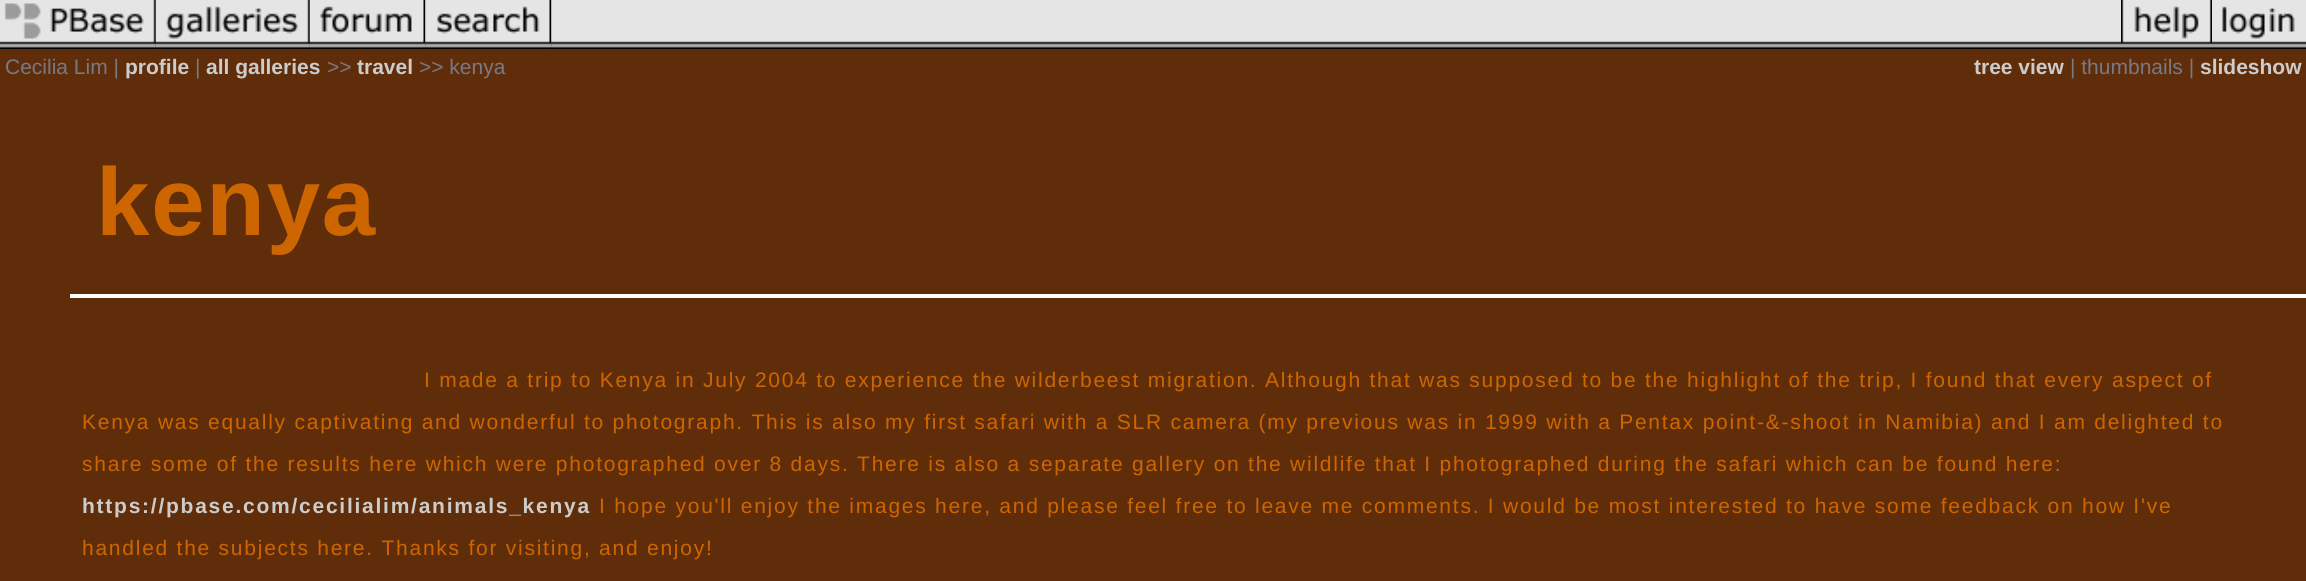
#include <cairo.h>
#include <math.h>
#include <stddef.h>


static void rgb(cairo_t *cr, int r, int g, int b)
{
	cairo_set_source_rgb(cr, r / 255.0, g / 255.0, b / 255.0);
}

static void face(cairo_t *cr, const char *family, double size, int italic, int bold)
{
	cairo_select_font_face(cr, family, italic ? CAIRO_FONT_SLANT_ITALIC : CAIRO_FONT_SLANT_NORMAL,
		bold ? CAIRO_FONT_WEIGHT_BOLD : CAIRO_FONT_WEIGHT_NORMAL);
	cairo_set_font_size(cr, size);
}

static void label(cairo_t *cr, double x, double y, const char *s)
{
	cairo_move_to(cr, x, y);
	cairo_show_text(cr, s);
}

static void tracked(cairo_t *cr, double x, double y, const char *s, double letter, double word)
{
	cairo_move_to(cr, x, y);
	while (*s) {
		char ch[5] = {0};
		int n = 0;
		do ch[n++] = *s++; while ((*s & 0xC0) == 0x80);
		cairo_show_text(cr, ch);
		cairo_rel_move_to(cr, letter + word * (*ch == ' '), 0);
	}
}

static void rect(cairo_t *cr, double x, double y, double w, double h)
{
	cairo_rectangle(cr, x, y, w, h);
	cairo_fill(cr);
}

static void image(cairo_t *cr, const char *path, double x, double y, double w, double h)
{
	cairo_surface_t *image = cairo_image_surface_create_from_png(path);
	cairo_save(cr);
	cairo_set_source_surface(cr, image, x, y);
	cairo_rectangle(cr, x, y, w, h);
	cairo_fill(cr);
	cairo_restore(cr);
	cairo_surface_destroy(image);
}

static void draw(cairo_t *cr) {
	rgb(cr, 96, 45, 11);
	cairo_paint(cr);
	image(cr, "image0.png", 0, 0, 156, 49);
	image(cr, "image1.png", 155, 0, 155, 49);
	image(cr, "image2.png", 309, 0, 117, 49);
	image(cr, "image3.png", 425, 0, 127, 49);
	image(cr, "image4.png", 551, 0, 1570, 49);
	image(cr, "image5.png", 2121, 0, 91, 49);
	image(cr, "image6.png", 2212, 0, 94, 49);
	face(cr, "Liberation Sans", 21, 0, 0);
	rgb(cr, 121, 121, 131);
	label(cr, 5, 74, "Cecilia Lim |");
	face(cr, "Liberation Sans", 21, 0, 1);
	rgb(cr, 204, 204, 204);
	label(cr, 125, 74, "profile");
	face(cr, "Liberation Sans", 21, 0, 0);
	rgb(cr, 121, 121, 131);
	label(cr, 195, 74, "|");
	face(cr, "Liberation Sans", 21, 0, 1);
	rgb(cr, 204, 204, 204);
	label(cr, 206, 74, "all galleries");
	face(cr, "Liberation Sans", 21, 0, 0);
	rgb(cr, 121, 121, 131);
	label(cr, 327, 74, ">>");
	face(cr, "Liberation Sans", 21, 0, 1);
	rgb(cr, 204, 204, 204);
	label(cr, 357, 74, "travel");
	face(cr, "Liberation Sans", 21, 0, 0);
	rgb(cr, 121, 121, 131);
	label(cr, 419, 74, ">> kenya");
	face(cr, "Liberation Sans", 21, 0, 1);
	rgb(cr, 204, 204, 204);
	label(cr, 1974, 74, "tree view");
	face(cr, "Liberation Sans", 21, 0, 0);
	rgb(cr, 121, 121, 131);
	label(cr, 2070, 74, "| thumbnails |");
	face(cr, "Liberation Sans", 21, 0, 1);
	rgb(cr, 204, 204, 204);
	label(cr, 2200, 74, "slideshow");
	rgb(cr, 255, 255, 255);
	rect(cr, 70, 294, 2236, 4);
	face(cr, "Liberation Sans", 96, 0, 1);
	rgb(cr, 205, 102, 0);
	tracked(cr, 96, 235, "kenya", 1.75, 0);
	face(cr, "Liberation Sans", 21, 0, 0);
	tracked(cr, 424, 387, "I made a trip to Kenya in July 2004 to experience the wilderbeest migration. Although that was supposed to be the highlight of the trip, I found that every aspect of", 1.75, 0);
	tracked(cr, 82, 429, "Kenya was equally captivating and wonderful to photograph. This is also my first safari with a SLR camera (my previous was in 1999 with a Pentax point-&-shoot in Namibia) and I am delighted to", 1.75, 0);
	tracked(cr, 82, 471, "share some of the results here which were photographed over 8 days. There is also a separate gallery on the wildlife that I photographed during the safari which can be found here:", 1.75, 0);
	face(cr, "Liberation Sans", 21, 0, 1);
	rgb(cr, 204, 204, 204);
	tracked(cr, 82, 513, "https://pbase.com/cecilialim/animals_kenya", 1.75, 0);
	face(cr, "Liberation Sans", 21, 0, 0);
	rgb(cr, 205, 102, 0);
	tracked(cr, 599, 513, "I hope you'll enjoy the images here, and please feel free to leave me comments. I would be most interested to have some feedback on how I've", 1.75, 0);
	tracked(cr, 82, 555, "handled the subjects here. Thanks for visiting, and enjoy!", 1.75, 0);
}

int main(void) {
	cairo_surface_t *surface = cairo_image_surface_create(CAIRO_FORMAT_RGB24, 2306, 581);
	cairo_t *cr = cairo_create(surface);
	cairo_font_options_t *options = cairo_font_options_create();
	cairo_font_options_set_hint_metrics(options, CAIRO_HINT_METRICS_OFF);
	cairo_font_options_set_hint_style(options, CAIRO_HINT_STYLE_NONE);
	cairo_set_font_options(cr, options);
	cairo_set_miter_limit(cr, 4);
	draw(cr);
	cairo_surface_write_to_png(surface, "render.png");
	cairo_font_options_destroy(options);
	cairo_destroy(cr);
	cairo_surface_destroy(surface);
	return 0;
}
